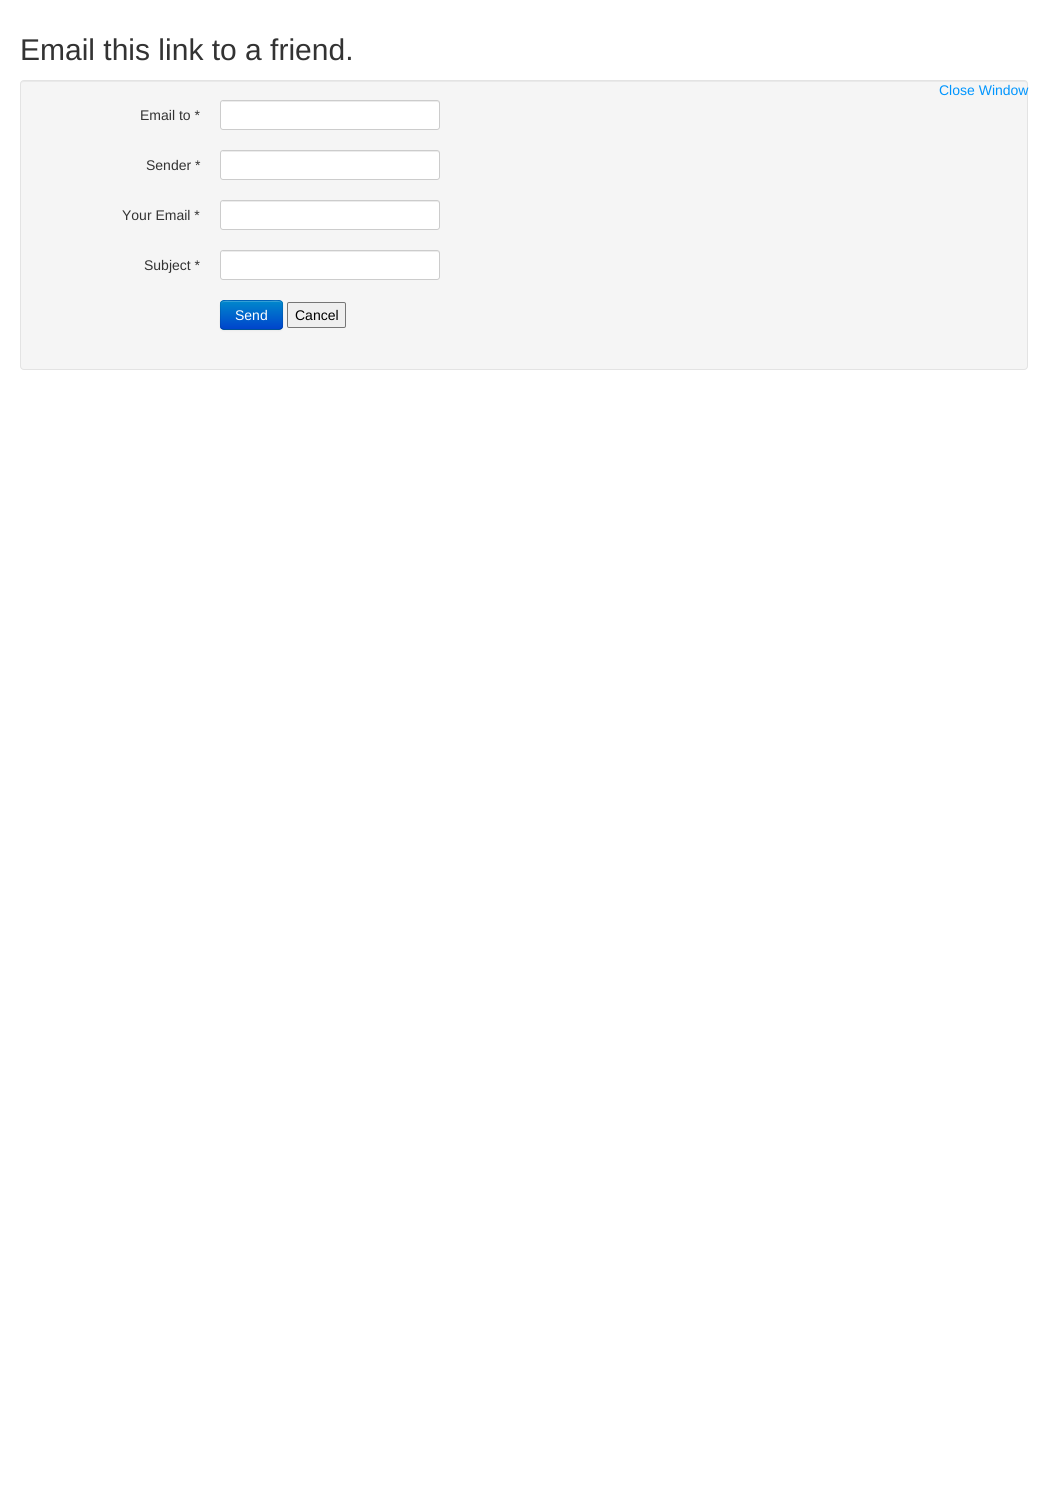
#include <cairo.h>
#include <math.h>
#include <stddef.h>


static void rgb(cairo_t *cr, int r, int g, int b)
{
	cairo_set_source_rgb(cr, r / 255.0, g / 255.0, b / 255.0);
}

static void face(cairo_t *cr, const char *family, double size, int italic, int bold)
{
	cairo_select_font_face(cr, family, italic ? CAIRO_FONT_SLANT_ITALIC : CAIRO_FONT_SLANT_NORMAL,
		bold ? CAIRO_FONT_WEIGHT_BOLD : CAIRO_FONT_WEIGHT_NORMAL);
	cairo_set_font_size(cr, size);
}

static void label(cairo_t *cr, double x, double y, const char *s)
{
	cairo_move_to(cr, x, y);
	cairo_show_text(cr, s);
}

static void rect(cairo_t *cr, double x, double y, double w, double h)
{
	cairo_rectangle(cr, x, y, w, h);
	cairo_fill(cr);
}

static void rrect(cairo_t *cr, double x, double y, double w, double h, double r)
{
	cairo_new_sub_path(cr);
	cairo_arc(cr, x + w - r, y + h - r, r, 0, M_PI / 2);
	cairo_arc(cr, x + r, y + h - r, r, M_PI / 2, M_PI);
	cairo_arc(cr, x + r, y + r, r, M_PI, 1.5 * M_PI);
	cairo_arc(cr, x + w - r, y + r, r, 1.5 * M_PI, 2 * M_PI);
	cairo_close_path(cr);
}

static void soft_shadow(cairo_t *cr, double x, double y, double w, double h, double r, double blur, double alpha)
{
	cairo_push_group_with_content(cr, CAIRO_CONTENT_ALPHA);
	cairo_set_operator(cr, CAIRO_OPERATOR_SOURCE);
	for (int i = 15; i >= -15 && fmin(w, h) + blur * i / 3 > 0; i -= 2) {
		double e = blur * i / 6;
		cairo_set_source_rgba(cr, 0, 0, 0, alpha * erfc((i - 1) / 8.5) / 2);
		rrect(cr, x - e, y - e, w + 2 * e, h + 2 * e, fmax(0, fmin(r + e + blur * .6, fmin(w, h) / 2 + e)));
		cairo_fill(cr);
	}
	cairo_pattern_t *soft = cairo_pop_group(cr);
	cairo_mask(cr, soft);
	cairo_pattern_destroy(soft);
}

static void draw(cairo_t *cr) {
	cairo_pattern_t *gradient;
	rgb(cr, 255, 255, 255);
	cairo_paint(cr);
	face(cr, "Liberation Sans", 30, 0, 0);
	rgb(cr, 51, 51, 51);
	label(cr, 20, 60, "Email this link to a friend.");
	rgb(cr, 245, 245, 245);
	rrect(cr, 20, 80, 1008, 290, 4);
	cairo_fill(cr);
	rgb(cr, 233, 233, 233);
	cairo_new_path(cr);
	cairo_move_to(cr, 24, 82);
	cairo_line_to(cr, 1024, 82);
	cairo_curve_to(cr, 1026, 82, 1027, 83, 1027, 85);
	cairo_curve_to(cr, 1027, 83, 1026, 81, 1024, 81);
	cairo_line_to(cr, 24, 81);
	cairo_curve_to(cr, 22, 81, 21, 83, 21, 85);
	cairo_curve_to(cr, 21, 83, 22, 82, 24, 82);
	cairo_close_path(cr);
	cairo_fill(cr);
	rrect(cr, 20.5, 80.5, 1007, 289, 3.5);
	rgb(cr, 227, 227, 227);
	cairo_set_line_width(cr, 1);
	cairo_stroke(cr);
	face(cr, "Liberation Sans", 14, 0, 0);
	rgb(cr, 0, 149, 254);
	label(cr, 939, 95, "Close Window");
	rgb(cr, 51, 51, 51);
	label(cr, 140, 120, "Email to *");
	rgb(cr, 255, 255, 255);
	rrect(cr, 220, 100, 220, 30, 3);
	cairo_fill(cr);
	rgb(cr, 236, 236, 236);
	cairo_new_path(cr);
	cairo_move_to(cr, 223, 102);
	cairo_line_to(cr, 437, 102);
	cairo_curve_to(cr, 438, 102, 439, 103, 439, 104);
	cairo_curve_to(cr, 439, 103, 439, 101, 437, 101);
	cairo_line_to(cr, 223, 101);
	cairo_line_to(cr, 222, 102);
	cairo_line_to(cr, 221, 104);
	cairo_curve_to(cr, 221, 103, 222, 102, 223, 102);
	cairo_close_path(cr);
	cairo_fill(cr);
	rrect(cr, 220.5, 100.5, 219, 29, 2.5);
	rgb(cr, 204, 204, 204);
	cairo_stroke(cr);
	rgb(cr, 51, 51, 51);
	label(cr, 146, 170, "Sender *");
	rgb(cr, 255, 255, 255);
	rrect(cr, 220, 150, 220, 30, 3);
	cairo_fill(cr);
	rgb(cr, 236, 236, 236);
	cairo_new_path(cr);
	cairo_move_to(cr, 223, 152);
	cairo_line_to(cr, 437, 152);
	cairo_curve_to(cr, 438, 152, 439, 153, 439, 154);
	cairo_curve_to(cr, 439, 153, 439, 151, 437, 151);
	cairo_line_to(cr, 223, 151);
	cairo_line_to(cr, 222, 152);
	cairo_line_to(cr, 221, 154);
	cairo_curve_to(cr, 221, 153, 222, 152, 223, 152);
	cairo_close_path(cr);
	cairo_fill(cr);
	rrect(cr, 220.5, 150.5, 219, 29, 2.5);
	rgb(cr, 204, 204, 204);
	cairo_stroke(cr);
	rgb(cr, 51, 51, 51);
	label(cr, 122, 220, "Your Email *");
	rgb(cr, 255, 255, 255);
	rrect(cr, 220, 200, 220, 30, 3);
	cairo_fill(cr);
	rgb(cr, 236, 236, 236);
	cairo_new_path(cr);
	cairo_move_to(cr, 223, 202);
	cairo_line_to(cr, 437, 202);
	cairo_curve_to(cr, 438, 202, 439, 203, 439, 204);
	cairo_curve_to(cr, 439, 203, 439, 201, 437, 201);
	cairo_line_to(cr, 223, 201);
	cairo_line_to(cr, 222, 202);
	cairo_line_to(cr, 221, 204);
	cairo_curve_to(cr, 221, 203, 222, 202, 223, 202);
	cairo_close_path(cr);
	cairo_fill(cr);
	rrect(cr, 220.5, 200.5, 219, 29, 2.5);
	rgb(cr, 204, 204, 204);
	cairo_stroke(cr);
	rgb(cr, 51, 51, 51);
	label(cr, 144, 270, "Subject *");
	rgb(cr, 255, 255, 255);
	rrect(cr, 220, 250, 220, 30, 3);
	cairo_fill(cr);
	rgb(cr, 236, 236, 236);
	cairo_new_path(cr);
	cairo_move_to(cr, 223, 252);
	cairo_line_to(cr, 437, 252);
	cairo_curve_to(cr, 438, 252, 439, 253, 439, 254);
	cairo_curve_to(cr, 439, 253, 439, 251, 437, 251);
	cairo_line_to(cr, 223, 251);
	cairo_line_to(cr, 222, 252);
	cairo_line_to(cr, 221, 254);
	cairo_curve_to(cr, 221, 253, 222, 252, 223, 252);
	cairo_close_path(cr);
	cairo_fill(cr);
	rrect(cr, 220.5, 250.5, 219, 29, 2.5);
	rgb(cr, 204, 204, 204);
	cairo_stroke(cr);
	rgb(cr, 0, 0, 0);
	soft_shadow(cr, 220, 301, 63, 30, 4, 1, 0.05);
	rgb(cr, 0, 109, 204);
	rrect(cr, 220, 300, 63, 30, 4);
	cairo_fill(cr);
	cairo_save(cr);
	rrect(cr, 220, 300, 63, 30, 4);
	cairo_clip(cr);
	gradient = cairo_pattern_create_linear(252, 301, 252, 329);
	cairo_pattern_add_color_stop_rgba(gradient, 0, 0, 0.533, 0.8, 1);
	cairo_pattern_add_color_stop_rgba(gradient, 1, 0, 0.267, 0.8, 1);
	cairo_set_source(cr, gradient);
	cairo_pattern_destroy(gradient);
	rect(cr, 220, 301, 63, 28);
	cairo_restore(cr);
	rgb(cr, 51, 159, 214);
	cairo_new_path(cr);
	cairo_move_to(cr, 224, 302);
	cairo_line_to(cr, 279, 302);
	cairo_curve_to(cr, 281, 302, 282, 303, 282, 305);
	cairo_curve_to(cr, 282, 299, 274, 301, 270, 301);
	cairo_line_to(cr, 233, 301);
	cairo_curve_to(cr, 229, 301, 221, 299, 221, 305);
	cairo_curve_to(cr, 221, 303, 222, 302, 224, 302);
	cairo_close_path(cr);
	cairo_fill(cr);
	cairo_new_path(cr);
	cairo_move_to(cr, 281.5, 328.5);
	cairo_line_to(cr, 279.5, 329.5);
	cairo_line_to(cr, 223.5, 329.5);
	cairo_line_to(cr, 221.5, 328.5);
	cairo_set_source_rgba(cr, 0, 0, 0, 0.25);
	cairo_stroke(cr);
	cairo_new_path(cr);
	cairo_move_to(cr, 221.5, 328.5);
	cairo_curve_to(cr, 219.5, 326.5, 220.5, 318, 220.5, 315);
	cairo_curve_to(cr, 220.5, 299.5, 218, 300.5, 233, 300.5);
	cairo_line_to(cr, 270, 300.5);
	cairo_curve_to(cr, 285, 300.5, 282.5, 299.5, 282.5, 315);
	cairo_curve_to(cr, 282.5, 318, 283.5, 326.5, 281.5, 328.5);
	cairo_set_source_rgba(cr, 0, 0, 0, 0.1);
	cairo_stroke(cr);
	rgb(cr, 255, 255, 255);
	label(cr, 235, 320, "Send");
	rgb(cr, 239, 239, 239);
	rrect(cr, 287.5, 302.5, 58, 25, 1.5);
	cairo_fill_preserve(cr);
	rgb(cr, 118, 118, 118);
	cairo_stroke(cr);
	rgb(cr, 0, 0, 0);
	label(cr, 295, 320, "Cancel");
}

int main(void) {
	cairo_surface_t *surface = cairo_image_surface_create(CAIRO_FORMAT_RGB24, 1048, 1502);
	cairo_t *cr = cairo_create(surface);
	cairo_font_options_t *options = cairo_font_options_create();
	cairo_font_options_set_hint_metrics(options, CAIRO_HINT_METRICS_OFF);
	cairo_font_options_set_hint_style(options, CAIRO_HINT_STYLE_NONE);
	cairo_set_font_options(cr, options);
	cairo_set_miter_limit(cr, 4);
	draw(cr);
	cairo_surface_write_to_png(surface, "render.png");
	cairo_font_options_destroy(options);
	cairo_destroy(cr);
	cairo_surface_destroy(surface);
	return 0;
}
